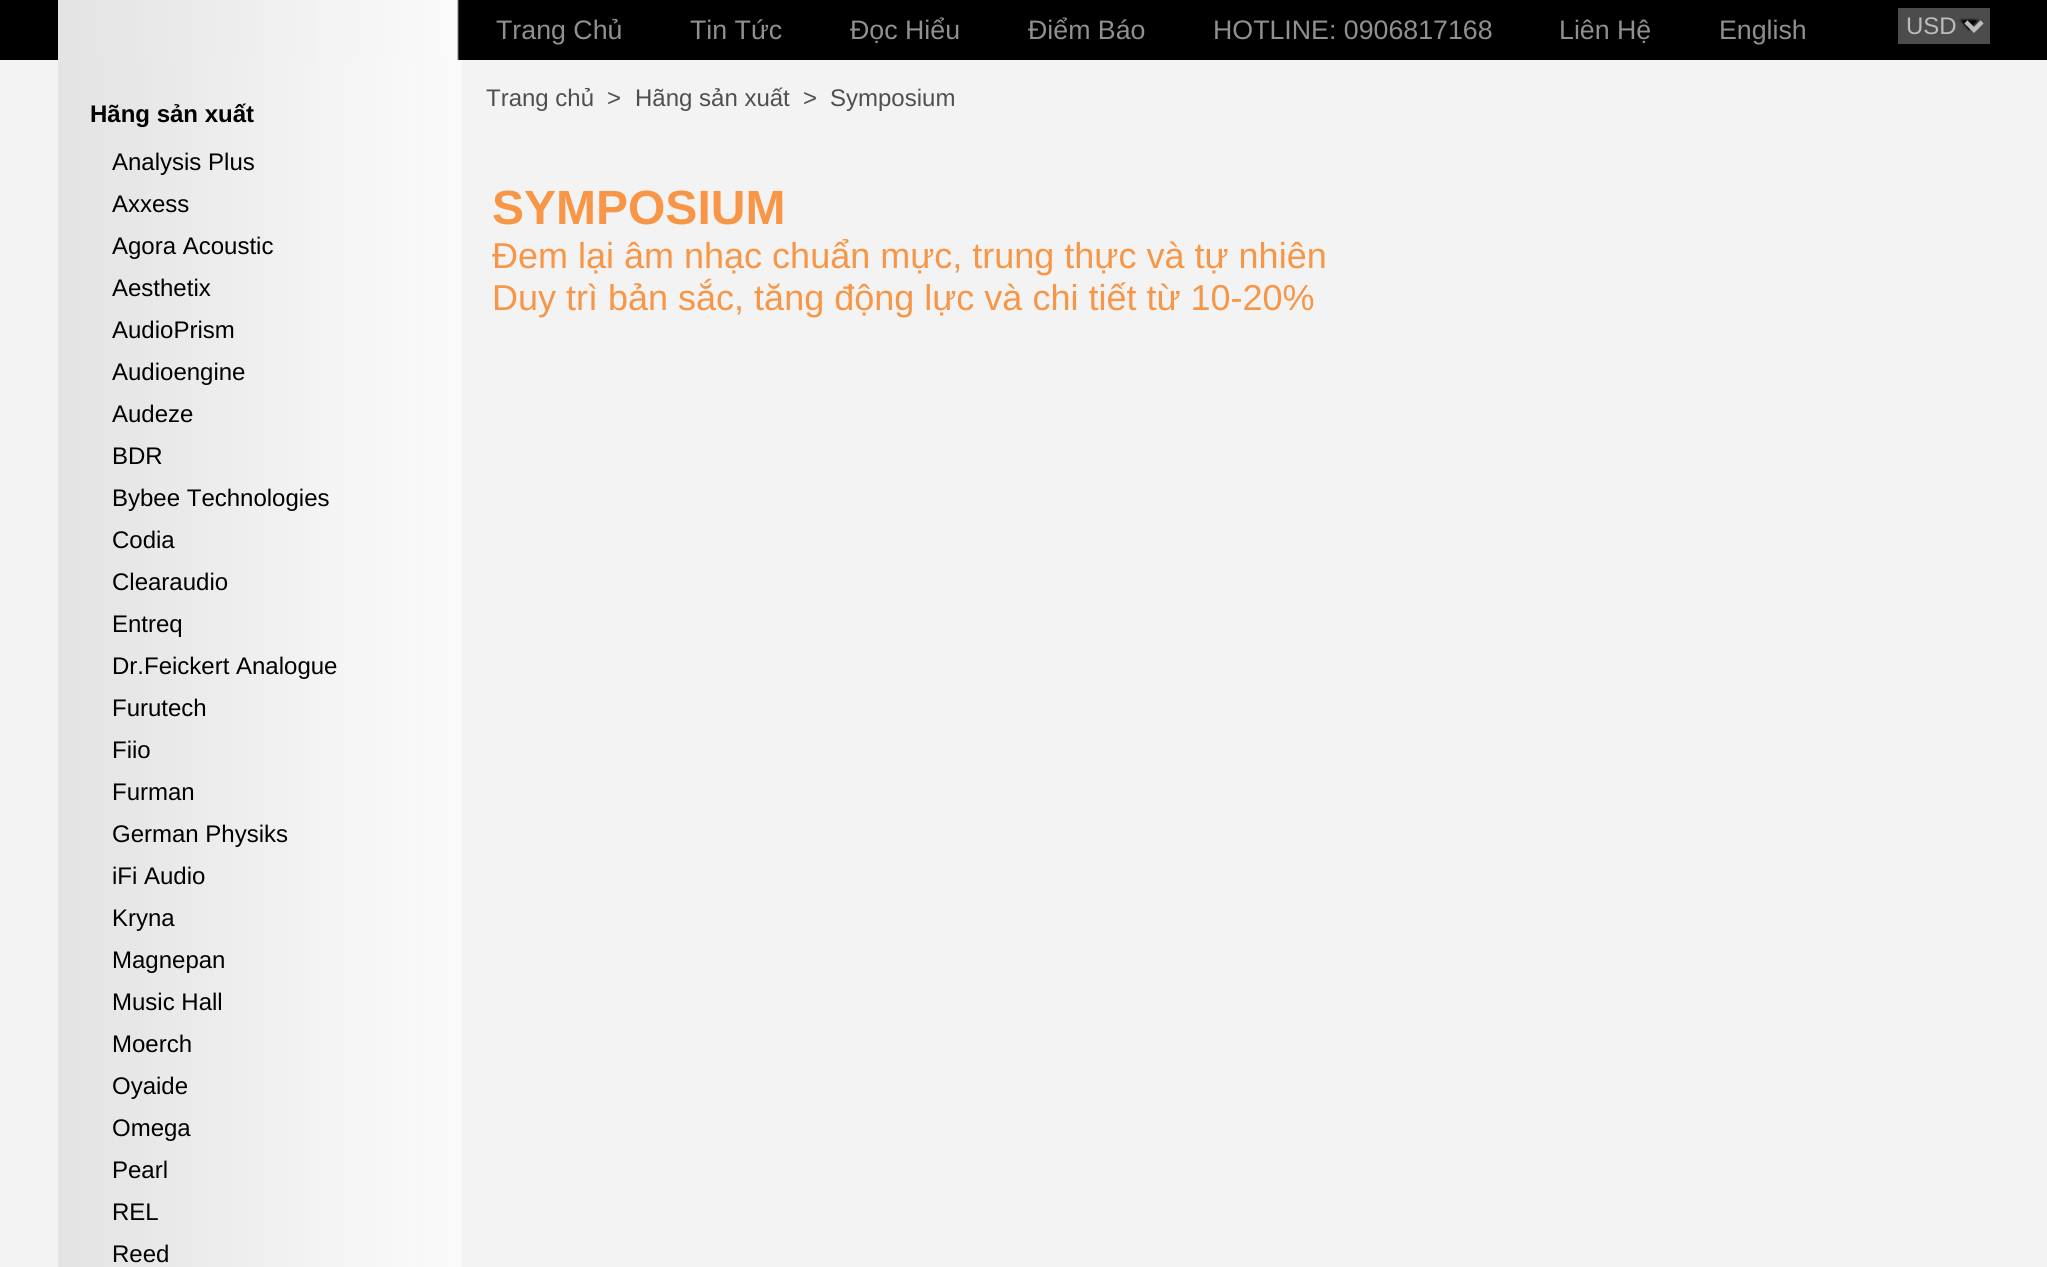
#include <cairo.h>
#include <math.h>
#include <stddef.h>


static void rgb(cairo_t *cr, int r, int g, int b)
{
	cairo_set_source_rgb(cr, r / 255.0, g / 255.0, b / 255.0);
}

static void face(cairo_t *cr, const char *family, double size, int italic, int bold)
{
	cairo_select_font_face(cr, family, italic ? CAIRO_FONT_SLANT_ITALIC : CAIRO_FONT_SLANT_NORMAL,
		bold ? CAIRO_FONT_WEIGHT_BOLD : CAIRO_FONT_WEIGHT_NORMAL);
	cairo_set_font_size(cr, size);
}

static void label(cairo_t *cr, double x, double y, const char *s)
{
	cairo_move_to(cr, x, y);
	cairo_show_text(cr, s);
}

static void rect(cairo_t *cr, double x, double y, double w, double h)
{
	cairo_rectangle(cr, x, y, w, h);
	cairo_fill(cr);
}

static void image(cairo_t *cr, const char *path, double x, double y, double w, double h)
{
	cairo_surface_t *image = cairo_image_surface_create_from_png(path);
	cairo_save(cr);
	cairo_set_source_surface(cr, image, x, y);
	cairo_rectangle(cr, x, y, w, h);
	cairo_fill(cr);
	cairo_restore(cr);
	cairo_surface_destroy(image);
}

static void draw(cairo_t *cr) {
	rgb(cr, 243, 243, 243);
	cairo_paint(cr);
	rgb(cr, 0, 0, 0);
	rect(cr, 0, 0, 2047, 60);
	image(cr, "image0.png", 58, 0, 401, 60);
	face(cr, "Liberation Sans", 26.75, 0, 0);
	rgb(cr, 144, 144, 144);
	label(cr, 496, 39, "Trang Chủ");
	label(cr, 690, 39, "Tin Tức");
	label(cr, 850, 39, "Đọc Hiểu");
	label(cr, 1028, 39, "Điểm Báo");
	label(cr, 1213, 39, "HOTLINE: 0906817168");
	label(cr, 1559, 39, "Liên Hệ");
	label(cr, 1719, 39, "English");
	rgb(cr, 76, 76, 76);
	rect(cr, 1898, 8, 92, 36);
	image(cr, "image1.png", 1959, 18, 25, 15);
	cairo_new_path(cr);
	cairo_move_to(cr, 1966, 22);
	cairo_line_to(cr, 1974, 30);
	cairo_line_to(cr, 1982, 22);
	rgb(cr, 188, 188, 188);
	cairo_set_line_width(cr, 4);
	cairo_stroke(cr);
	face(cr, "Liberation Sans", 24, 0, 0);
	label(cr, 1906, 34, "USD");
	image(cr, "image2.png", 58, 60, 404, 1207);
	face(cr, "Liberation Sans", 24, 0, 1);
	rgb(cr, 0, 0, 0);
	label(cr, 90, 122, "Hãng sản xuất");
	face(cr, "Liberation Sans", 24, 0, 0);
	label(cr, 112, 170, "Analysis Plus");
	label(cr, 112, 212, "Axxess");
	label(cr, 112, 254, "Agora Acoustic");
	label(cr, 112, 296, "Aesthetix");
	label(cr, 112, 338, "AudioPrism");
	label(cr, 112, 380, "Audioengine");
	label(cr, 112, 422, "Audeze");
	label(cr, 112, 464, "BDR");
	label(cr, 112, 506, "Bybee Technologies");
	label(cr, 112, 548, "Codia");
	label(cr, 112, 590, "Clearaudio");
	label(cr, 112, 632, "Entreq");
	label(cr, 112, 674, "Dr.Feickert Analogue");
	label(cr, 112, 716, "Furutech");
	label(cr, 112, 758, "Fiio");
	label(cr, 112, 800, "Furman");
	label(cr, 112, 842, "German Physiks");
	label(cr, 112, 884, "iFi Audio");
	label(cr, 112, 926, "Kryna");
	label(cr, 112, 968, "Magnepan");
	label(cr, 112, 1010, "Music Hall");
	label(cr, 112, 1052, "Moerch");
	label(cr, 112, 1094, "Oyaide");
	label(cr, 112, 1136, "Omega");
	label(cr, 112, 1178, "Pearl");
	label(cr, 112, 1220, "REL");
	label(cr, 112, 1262, "Reed");
	rgb(cr, 79, 79, 81);
	label(cr, 486, 106, "Trang chủ");
	label(cr, 607, 106, ">");
	label(cr, 635, 106, "Hãng sản xuất");
	label(cr, 803, 106, ">");
	label(cr, 830, 106, "Symposium");
	face(cr, "Liberation Sans", 48, 0, 1);
	rgb(cr, 247, 150, 70);
	label(cr, 492, 224, "SYMPOSIUM");
	face(cr, "Liberation Sans", 36, 0, 0);
	label(cr, 492, 268, "Đem lại âm nhạc chuẩn mực, trung thực và tự nhiên");
	label(cr, 492, 310, "Duy trì bản sắc, tăng động lực và chi tiết từ 10-20%");
}

int main(void) {
	cairo_surface_t *surface = cairo_image_surface_create(CAIRO_FORMAT_RGB24, 2047, 1267);
	cairo_t *cr = cairo_create(surface);
	cairo_font_options_t *options = cairo_font_options_create();
	cairo_font_options_set_hint_metrics(options, CAIRO_HINT_METRICS_OFF);
	cairo_font_options_set_hint_style(options, CAIRO_HINT_STYLE_NONE);
	cairo_set_font_options(cr, options);
	cairo_set_miter_limit(cr, 4);
	draw(cr);
	cairo_surface_write_to_png(surface, "render.png");
	cairo_font_options_destroy(options);
	cairo_destroy(cr);
	cairo_surface_destroy(surface);
	return 0;
}
